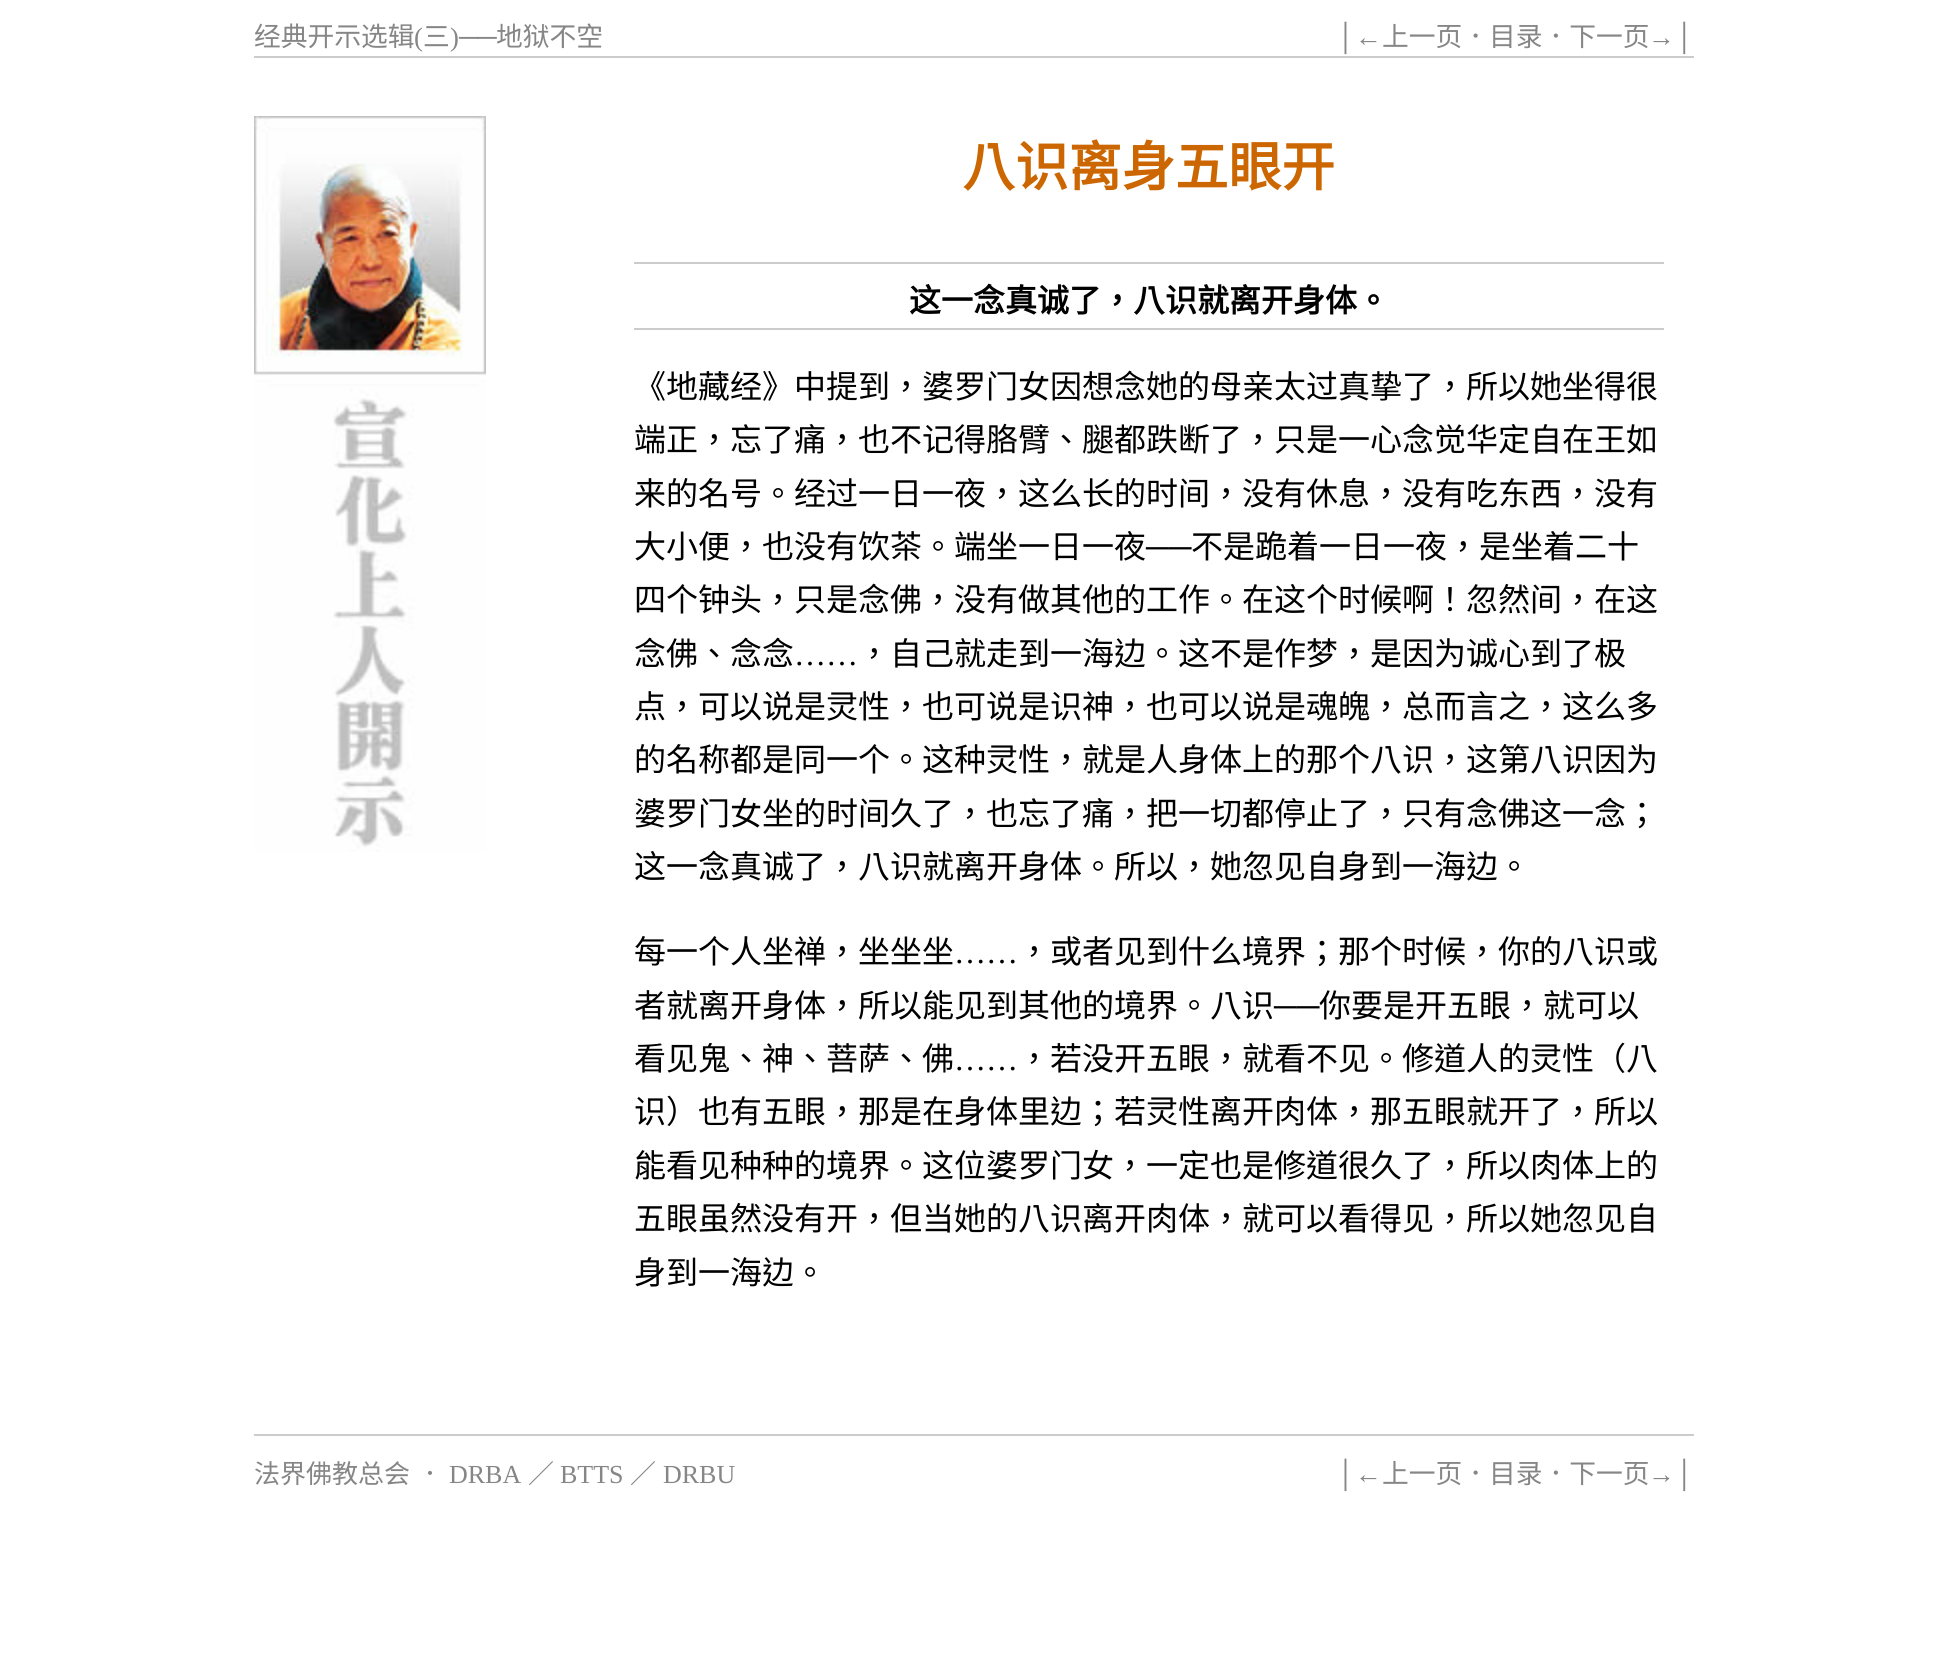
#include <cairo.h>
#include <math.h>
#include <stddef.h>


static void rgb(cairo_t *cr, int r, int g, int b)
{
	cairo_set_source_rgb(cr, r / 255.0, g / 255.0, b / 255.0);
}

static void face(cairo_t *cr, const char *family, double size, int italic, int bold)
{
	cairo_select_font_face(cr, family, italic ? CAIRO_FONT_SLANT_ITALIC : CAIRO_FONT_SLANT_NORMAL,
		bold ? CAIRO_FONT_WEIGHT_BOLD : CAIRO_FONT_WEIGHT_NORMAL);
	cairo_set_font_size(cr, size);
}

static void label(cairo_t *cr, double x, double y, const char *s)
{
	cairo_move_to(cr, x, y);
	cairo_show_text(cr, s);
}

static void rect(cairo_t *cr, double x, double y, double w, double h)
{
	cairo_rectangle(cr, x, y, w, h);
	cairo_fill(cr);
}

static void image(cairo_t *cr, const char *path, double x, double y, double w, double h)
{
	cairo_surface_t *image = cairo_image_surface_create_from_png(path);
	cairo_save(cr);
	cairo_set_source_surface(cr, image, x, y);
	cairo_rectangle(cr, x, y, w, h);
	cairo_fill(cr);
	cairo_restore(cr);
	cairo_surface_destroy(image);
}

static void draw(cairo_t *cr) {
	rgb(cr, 255, 255, 255);
	cairo_paint(cr);
	face(cr, "Noto Sans CJK TC", 26.75, 0, 0);
	rgb(cr, 134, 134, 134);
	label(cr, 254, 46, "经典开示选辑");
	face(cr, "Liberation Serif", 26.75, 0, 0);
	label(cr, 414, 46, "(");
	face(cr, "Noto Sans CJK TC", 26.75, 0, 0);
	label(cr, 423, 46, "三");
	face(cr, "Liberation Serif", 26.75, 0, 0);
	label(cr, 450, 46, ")──");
	face(cr, "Noto Sans CJK TC", 26.75, 0, 0);
	label(cr, 496, 46, "地狱不空");
	face(cr, "Liberation Serif", 26.75, 0, 0);
	label(cr, 1336, 46, "│←");
	face(cr, "Noto Sans CJK TC", 26.75, 0, 0);
	label(cr, 1382, 46, "上一页．目录．下一页");
	face(cr, "Liberation Serif", 26.75, 0, 0);
	label(cr, 1648, 46, "→│");
	rgb(cr, 204, 204, 204);
	rect(cr, 254, 56, 1440, 2);
	image(cr, "image0.png", 254, 116, 232, 736);
	face(cr, "Noto Sans CJK TC", 53.25, 0, 1);
	rgb(cr, 204, 102, 0);
	label(cr, 962, 186, "八识离身五眼开");
	rgb(cr, 204, 204, 204);
	rect(cr, 634, 262, 1030, 2);
	rect(cr, 634, 328, 1030, 2);
	face(cr, "Noto Sans CJK TC", 32, 0, 1);
	rgb(cr, 0, 0, 0);
	label(cr, 909, 312, "这一念真诚了，八识就离开身体。");
	face(cr, "Noto Sans CJK TC", 32, 0, 0);
	label(cr, 634, 398, "《地藏经》中提到，婆罗门女因想念她的母亲太过真挚了，所以她坐得很");
	label(cr, 634, 451, "端正，忘了痛，也不记得胳臂、腿都跌断了，只是一心念觉华定自在王如");
	label(cr, 634, 505, "来的名号。经过一日一夜，这么长的时间，没有休息，没有吃东西，没有");
	label(cr, 634, 558, "大小便，也没有饮茶。端坐一日一夜");
	face(cr, "Liberation Serif", 32, 0, 0);
	label(cr, 1146, 558, "──");
	face(cr, "Noto Sans CJK TC", 32, 0, 0);
	label(cr, 1191, 558, "不是跪着一日一夜，是坐着二十");
	label(cr, 634, 611, "四个钟头，只是念佛，没有做其他的工作。在这个时候啊！忽然间，在这");
	label(cr, 634, 665, "念佛、念念");
	face(cr, "Liberation Serif", 32, 0, 0);
	label(cr, 794, 665, "……");
	face(cr, "Noto Sans CJK TC", 32, 0, 0);
	label(cr, 858, 665, "，自己就走到一海边。这不是作梦，是因为诚心到了极");
	label(cr, 634, 718, "点，可以说是灵性，也可说是识神，也可以说是魂魄，总而言之，这么多");
	label(cr, 634, 771, "的名称都是同一个。这种灵性，就是人身体上的那个八识，这第八识因为");
	label(cr, 634, 825, "婆罗门女坐的时间久了，也忘了痛，把一切都停止了，只有念佛这一念；");
	label(cr, 634, 878, "这一念真诚了，八识就离开身体。所以，她忽见自身到一海边。");
	label(cr, 634, 963, "每一个人坐禅，坐坐坐");
	face(cr, "Liberation Serif", 32, 0, 0);
	label(cr, 954, 963, "……");
	face(cr, "Noto Sans CJK TC", 32, 0, 0);
	label(cr, 1018, 963, "，或者见到什么境界；那个时候，你的八识或");
	label(cr, 634, 1017, "者就离开身体，所以能见到其他的境界。八识");
	face(cr, "Liberation Serif", 32, 0, 0);
	label(cr, 1274, 1017, "──");
	face(cr, "Noto Sans CJK TC", 32, 0, 0);
	label(cr, 1319, 1017, "你要是开五眼，就可以");
	label(cr, 634, 1070, "看见鬼、神、菩萨、佛");
	face(cr, "Liberation Serif", 32, 0, 0);
	label(cr, 954, 1070, "……");
	face(cr, "Noto Sans CJK TC", 32, 0, 0);
	label(cr, 1018, 1070, "，若没开五眼，就看不见。修道人的灵性（八");
	label(cr, 634, 1123, "识）也有五眼，那是在身体里边；若灵性离开肉体，那五眼就开了，所以");
	label(cr, 634, 1177, "能看见种种的境界。这位婆罗门女，一定也是修道很久了，所以肉体上的");
	label(cr, 634, 1230, "五眼虽然没有开，但当她的八识离开肉体，就可以看得见，所以她忽见自");
	label(cr, 634, 1284, "身到一海边。");
	rgb(cr, 204, 204, 204);
	rect(cr, 254, 1434, 1440, 2);
	face(cr, "Noto Sans CJK TC", 26, 0, 0);
	rgb(cr, 134, 134, 134);
	label(cr, 254, 1483, "法界佛教总会");
	label(cr, 417, 1483, "．");
	face(cr, "Liberation Serif", 26, 0, 0);
	label(cr, 449, 1483, "DRBA");
	face(cr, "Noto Sans CJK TC", 26, 0, 0);
	label(cr, 528, 1483, "／");
	face(cr, "Liberation Serif", 26, 0, 0);
	label(cr, 560, 1483, "BTTS");
	face(cr, "Noto Sans CJK TC", 26, 0, 0);
	label(cr, 630, 1483, "／");
	face(cr, "Liberation Serif", 26, 0, 0);
	label(cr, 663, 1483, "DRBU");
	face(cr, "Liberation Serif", 26.75, 0, 0);
	label(cr, 1336, 1483, "│←");
	face(cr, "Noto Sans CJK TC", 26.75, 0, 0);
	label(cr, 1382, 1483, "上一页．目录．下一页");
	face(cr, "Liberation Serif", 26.75, 0, 0);
	label(cr, 1648, 1483, "→│");
}

int main(void) {
	cairo_surface_t *surface = cairo_image_surface_create(CAIRO_FORMAT_RGB24, 1948, 1673);
	cairo_t *cr = cairo_create(surface);
	cairo_font_options_t *options = cairo_font_options_create();
	cairo_font_options_set_hint_metrics(options, CAIRO_HINT_METRICS_OFF);
	cairo_font_options_set_hint_style(options, CAIRO_HINT_STYLE_NONE);
	cairo_set_font_options(cr, options);
	cairo_set_miter_limit(cr, 4);
	draw(cr);
	cairo_surface_write_to_png(surface, "render.png");
	cairo_font_options_destroy(options);
	cairo_destroy(cr);
	cairo_surface_destroy(surface);
	return 0;
}
